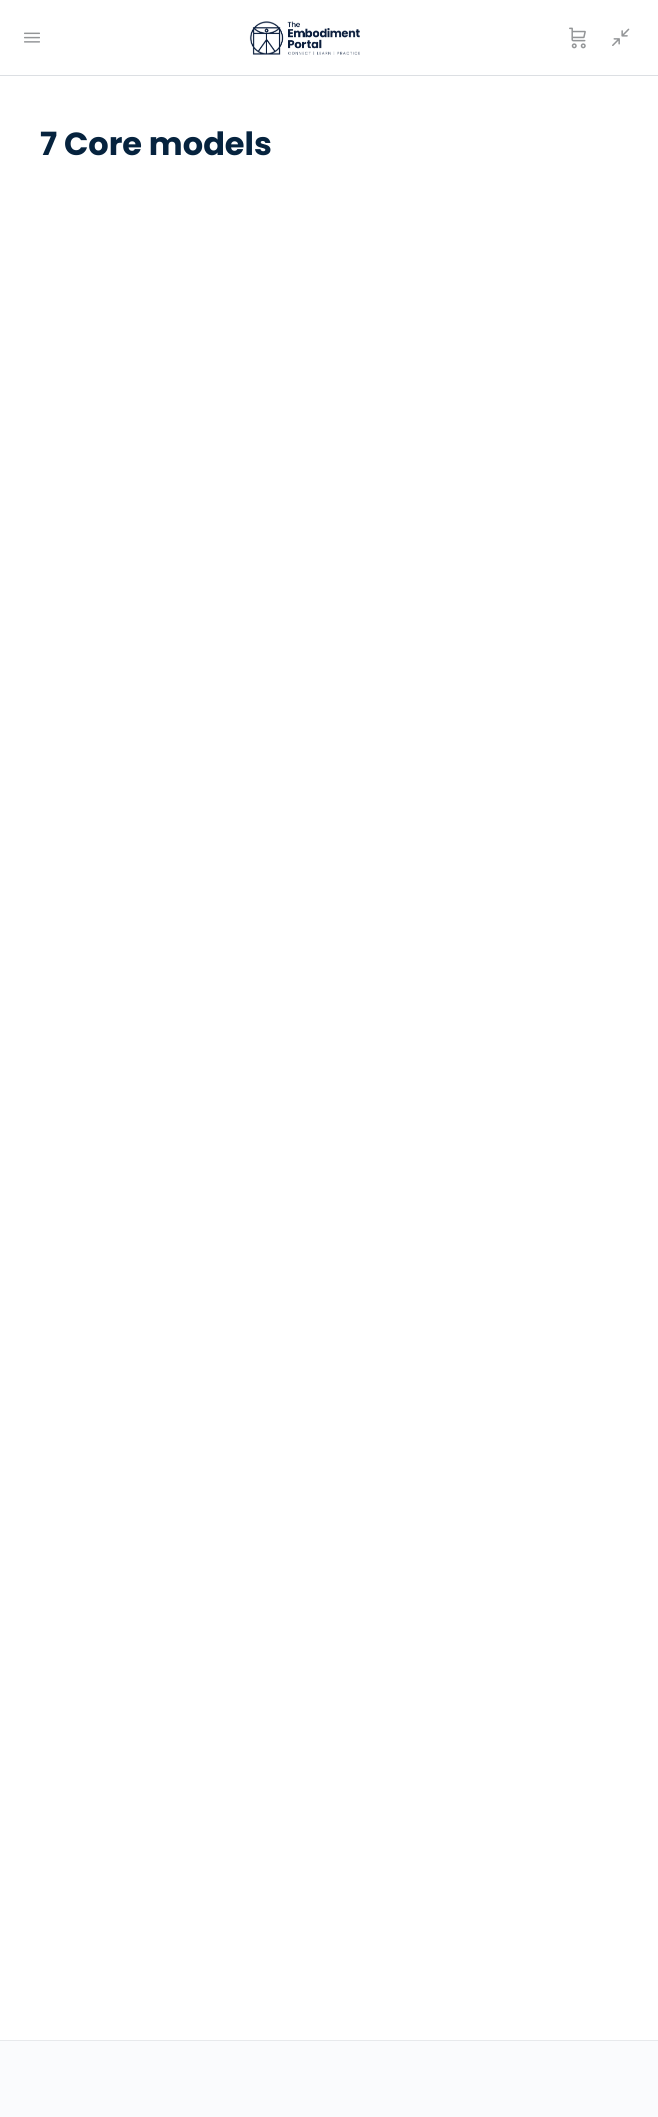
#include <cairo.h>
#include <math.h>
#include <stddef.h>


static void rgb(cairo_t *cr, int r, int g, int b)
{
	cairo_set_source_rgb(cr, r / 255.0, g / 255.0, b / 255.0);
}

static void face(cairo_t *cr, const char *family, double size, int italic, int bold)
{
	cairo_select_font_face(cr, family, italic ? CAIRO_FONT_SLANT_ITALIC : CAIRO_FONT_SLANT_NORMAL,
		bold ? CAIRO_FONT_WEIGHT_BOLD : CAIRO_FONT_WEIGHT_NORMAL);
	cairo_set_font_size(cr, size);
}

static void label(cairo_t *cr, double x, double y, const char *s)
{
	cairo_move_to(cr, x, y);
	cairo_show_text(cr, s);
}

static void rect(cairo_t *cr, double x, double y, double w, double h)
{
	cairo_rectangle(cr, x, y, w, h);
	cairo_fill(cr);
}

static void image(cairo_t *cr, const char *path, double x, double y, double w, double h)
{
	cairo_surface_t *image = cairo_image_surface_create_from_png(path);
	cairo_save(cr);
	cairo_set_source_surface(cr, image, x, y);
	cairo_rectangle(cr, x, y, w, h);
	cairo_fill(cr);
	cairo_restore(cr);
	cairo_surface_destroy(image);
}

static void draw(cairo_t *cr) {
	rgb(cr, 250, 251, 253);
	cairo_paint(cr);
	rgb(cr, 255, 255, 255);
	rect(cr, 0, 0, 658, 75);
	rgb(cr, 220, 223, 227);
	rect(cr, 0, 75, 658, 1);
	image(cr, "image0.png", 24, 32, 16, 11);
	image(cr, "image1.png", 249, 21, 111, 34);
	image(cr, "image2.png", 569, 27, 17, 22);
	image(cr, "image3.png", 612, 28, 18, 18);
	rgb(cr, 255, 255, 255);
	rect(cr, 0, 76, 658, 1964);
	rgb(cr, 231, 233, 236);
	rect(cr, 0, 2040, 658, 1);
	face(cr, "Poppins", 32, 0, 1);
	rgb(cr, 6, 35, 62);
	label(cr, 40, 155, "7 Core models");
}

int main(void) {
	cairo_surface_t *surface = cairo_image_surface_create(CAIRO_FORMAT_RGB24, 658, 2117);
	cairo_t *cr = cairo_create(surface);
	cairo_font_options_t *options = cairo_font_options_create();
	cairo_font_options_set_hint_metrics(options, CAIRO_HINT_METRICS_OFF);
	cairo_font_options_set_hint_style(options, CAIRO_HINT_STYLE_NONE);
	cairo_set_font_options(cr, options);
	cairo_set_miter_limit(cr, 4);
	draw(cr);
	cairo_surface_write_to_png(surface, "render.png");
	cairo_font_options_destroy(options);
	cairo_destroy(cr);
	cairo_surface_destroy(surface);
	return 0;
}
